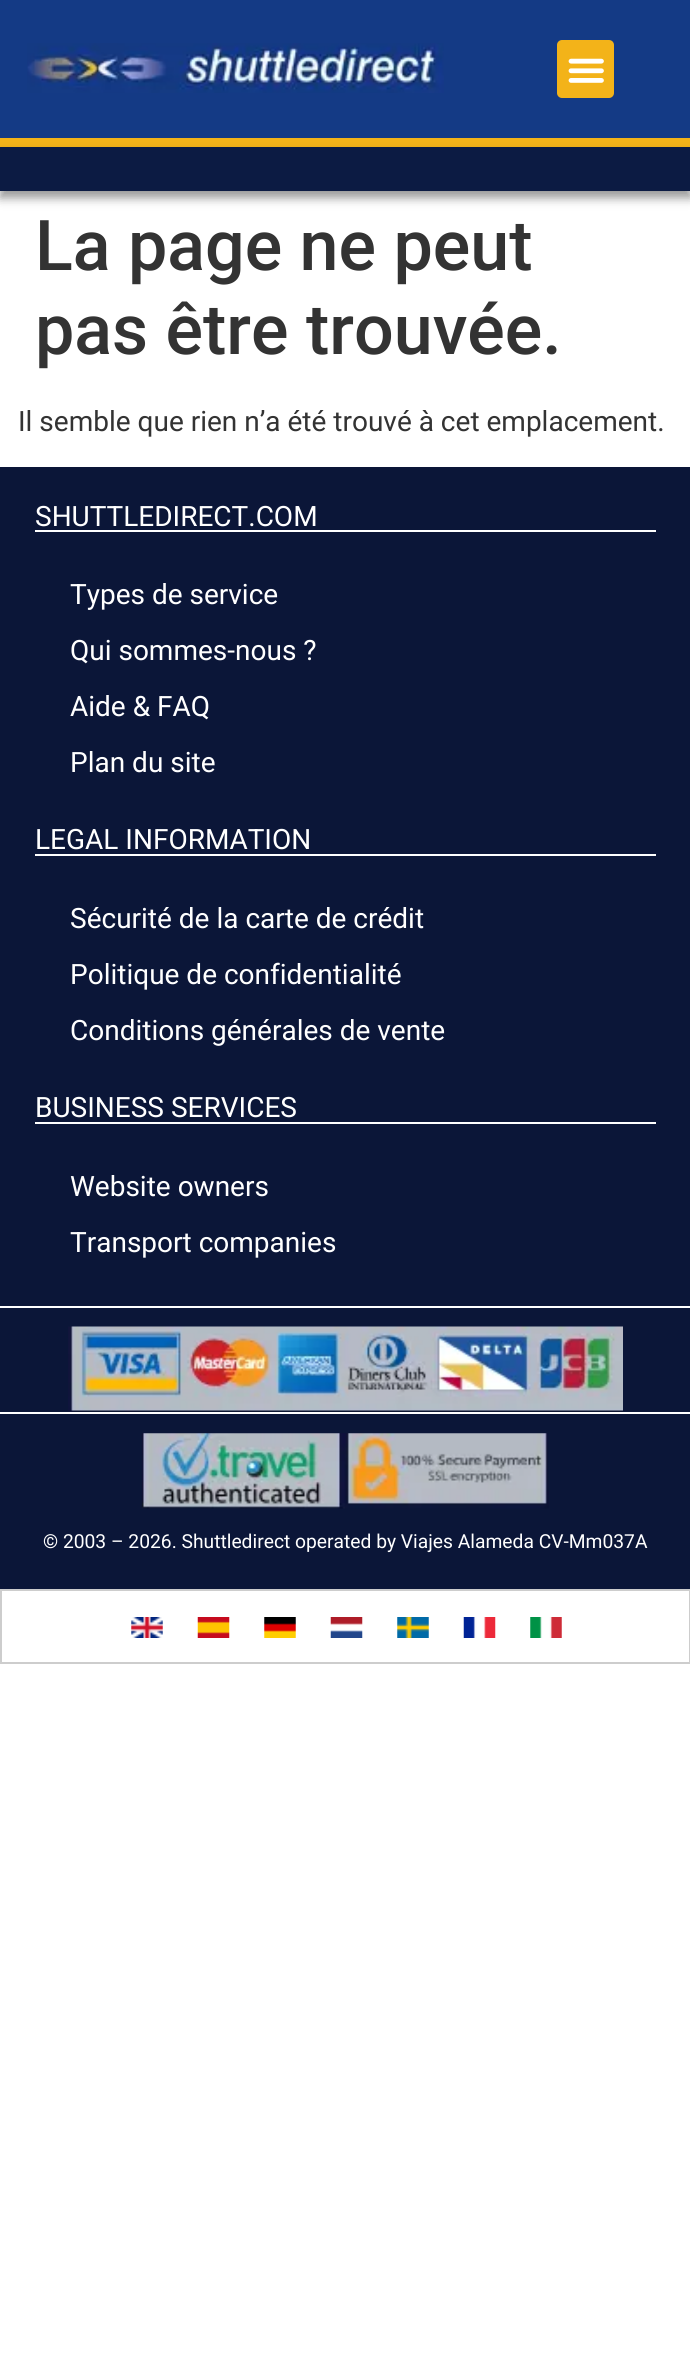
#include <cairo.h>
#include <math.h>
#include <stddef.h>


static void rgb(cairo_t *cr, int r, int g, int b)
{
	cairo_set_source_rgb(cr, r / 255.0, g / 255.0, b / 255.0);
}

static void face(cairo_t *cr, const char *family, double size, int italic, int bold)
{
	cairo_select_font_face(cr, family, italic ? CAIRO_FONT_SLANT_ITALIC : CAIRO_FONT_SLANT_NORMAL,
		bold ? CAIRO_FONT_WEIGHT_BOLD : CAIRO_FONT_WEIGHT_NORMAL);
	cairo_set_font_size(cr, size);
}

static void label(cairo_t *cr, double x, double y, const char *s)
{
	cairo_move_to(cr, x, y);
	cairo_show_text(cr, s);
}

static void rect(cairo_t *cr, double x, double y, double w, double h)
{
	cairo_rectangle(cr, x, y, w, h);
	cairo_fill(cr);
}

static void rrect(cairo_t *cr, double x, double y, double w, double h, double r)
{
	cairo_new_sub_path(cr);
	cairo_arc(cr, x + w - r, y + h - r, r, 0, M_PI / 2);
	cairo_arc(cr, x + r, y + h - r, r, M_PI / 2, M_PI);
	cairo_arc(cr, x + r, y + r, r, M_PI, 1.5 * M_PI);
	cairo_arc(cr, x + w - r, y + r, r, 1.5 * M_PI, 2 * M_PI);
	cairo_close_path(cr);
}

static void soft_shadow(cairo_t *cr, double x, double y, double w, double h, double r, double blur, double alpha)
{
	cairo_push_group_with_content(cr, CAIRO_CONTENT_ALPHA);
	cairo_set_operator(cr, CAIRO_OPERATOR_SOURCE);
	for (int i = 15; i >= -15 && fmin(w, h) + blur * i / 3 > 0; i -= 2) {
		double e = blur * i / 6;
		cairo_set_source_rgba(cr, 0, 0, 0, alpha * erfc((i - 1) / 8.5) / 2);
		rrect(cr, x - e, y - e, w + 2 * e, h + 2 * e, fmax(0, fmin(r + e + blur * .6, fmin(w, h) / 2 + e)));
		cairo_fill(cr);
	}
	cairo_pattern_t *soft = cairo_pop_group(cr);
	cairo_mask(cr, soft);
	cairo_pattern_destroy(soft);
}

static void image(cairo_t *cr, const char *path, double x, double y, double w, double h)
{
	cairo_surface_t *image = cairo_image_surface_create_from_png(path);
	cairo_save(cr);
	cairo_set_source_surface(cr, image, x, y);
	cairo_rectangle(cr, x, y, w, h);
	cairo_fill(cr);
	cairo_restore(cr);
	cairo_surface_destroy(image);
}

static void draw(cairo_t *cr) {
	rgb(cr, 255, 255, 255);
	cairo_paint(cr);
	rgb(cr, 20, 58, 133);
	rect(cr, 0, 0, 690, 138);
	rgb(cr, 243, 179, 25);
	rect(cr, 0, 138, 690, 9);
	image(cr, "image0.png", 27, 43, 417, 50);
	rrect(cr, 557, 40, 57, 58, 5);
	cairo_fill(cr);
	image(cr, "image1.png", 568, 58, 36, 25);
	rgb(cr, 0, 0, 0);
	soft_shadow(cr, 0, 154, 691, 44, 0, 5, 0.4);
	rgb(cr, 12, 27, 67);
	rect(cr, 0, 147, 690, 44);
	face(cr, "Roboto Medium", 70, 0, 0);
	rgb(cr, 51, 51, 51);
	label(cr, 35, 270, "La page ne peut");
	label(cr, 35, 354, "pas être trouvée.");
	face(cr, "Roboto", 28, 0, 0);
	label(cr, 18, 431, "Il semble que rien n’a été trouvé à cet emplacement.");
	rgb(cr, 11, 22, 56);
	rect(cr, 0, 467, 690, 839);
	rgb(cr, 255, 255, 255);
	rect(cr, 35, 530, 621, 2);
	label(cr, 35, 526, "SHUTTLEDIRECT.COM");
	label(cr, 70, 604, "Types de service");
	label(cr, 70, 660, "Qui sommes-nous ?");
	label(cr, 70, 716, "Aide & FAQ");
	label(cr, 70, 772, "Plan du site");
	rect(cr, 35, 854, 621, 2);
	label(cr, 35, 849, "LEGAL INFORMATION");
	label(cr, 70, 928, "Sécurité de la carte de crédit");
	label(cr, 70, 984, "Politique de confidentialité");
	label(cr, 70, 1040, "Conditions générales de vente");
	rect(cr, 35, 1122, 621, 2);
	label(cr, 35, 1117, "BUSINESS SERVICES");
	label(cr, 70, 1196, "Website owners");
	label(cr, 70, 1252, "Transport companies");
	rgb(cr, 11, 22, 56);
	rect(cr, 0, 1308, 690, 281);
	image(cr, "image2.png", 68, 1326, 555, 86);
	rgb(cr, 255, 255, 255);
	rect(cr, 0, 1412, 690, 2);
	image(cr, "image3.png", 141, 1433, 408, 76);
	face(cr, "Roboto", 19.25, 0, 0);
	label(cr, 43, 1548, "© 2003 – 2026. Shuttledirect operated by Viajes Alameda CV-Mm037A");
	cairo_rectangle(cr, 1, 1590, 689, 73);
	rgb(cr, 205, 205, 205);
	cairo_stroke(cr);
	image(cr, "image4.png", 131, 1617, 32, 21);
	image(cr, "image5.png", 197, 1617, 33, 21);
	image(cr, "image6.png", 264, 1617, 32, 21);
	image(cr, "image7.png", 330, 1617, 33, 21);
	image(cr, "image8.png", 397, 1617, 32, 21);
	image(cr, "image9.png", 463, 1617, 33, 21);
	image(cr, "image10.png", 530, 1617, 32, 21);
}

int main(void) {
	cairo_surface_t *surface = cairo_image_surface_create(CAIRO_FORMAT_RGB24, 690, 2374);
	cairo_t *cr = cairo_create(surface);
	cairo_font_options_t *options = cairo_font_options_create();
	cairo_font_options_set_hint_metrics(options, CAIRO_HINT_METRICS_OFF);
	cairo_font_options_set_hint_style(options, CAIRO_HINT_STYLE_NONE);
	cairo_set_font_options(cr, options);
	cairo_set_miter_limit(cr, 4);
	draw(cr);
	cairo_surface_write_to_png(surface, "render.png");
	cairo_font_options_destroy(options);
	cairo_destroy(cr);
	cairo_surface_destroy(surface);
	return 0;
}
